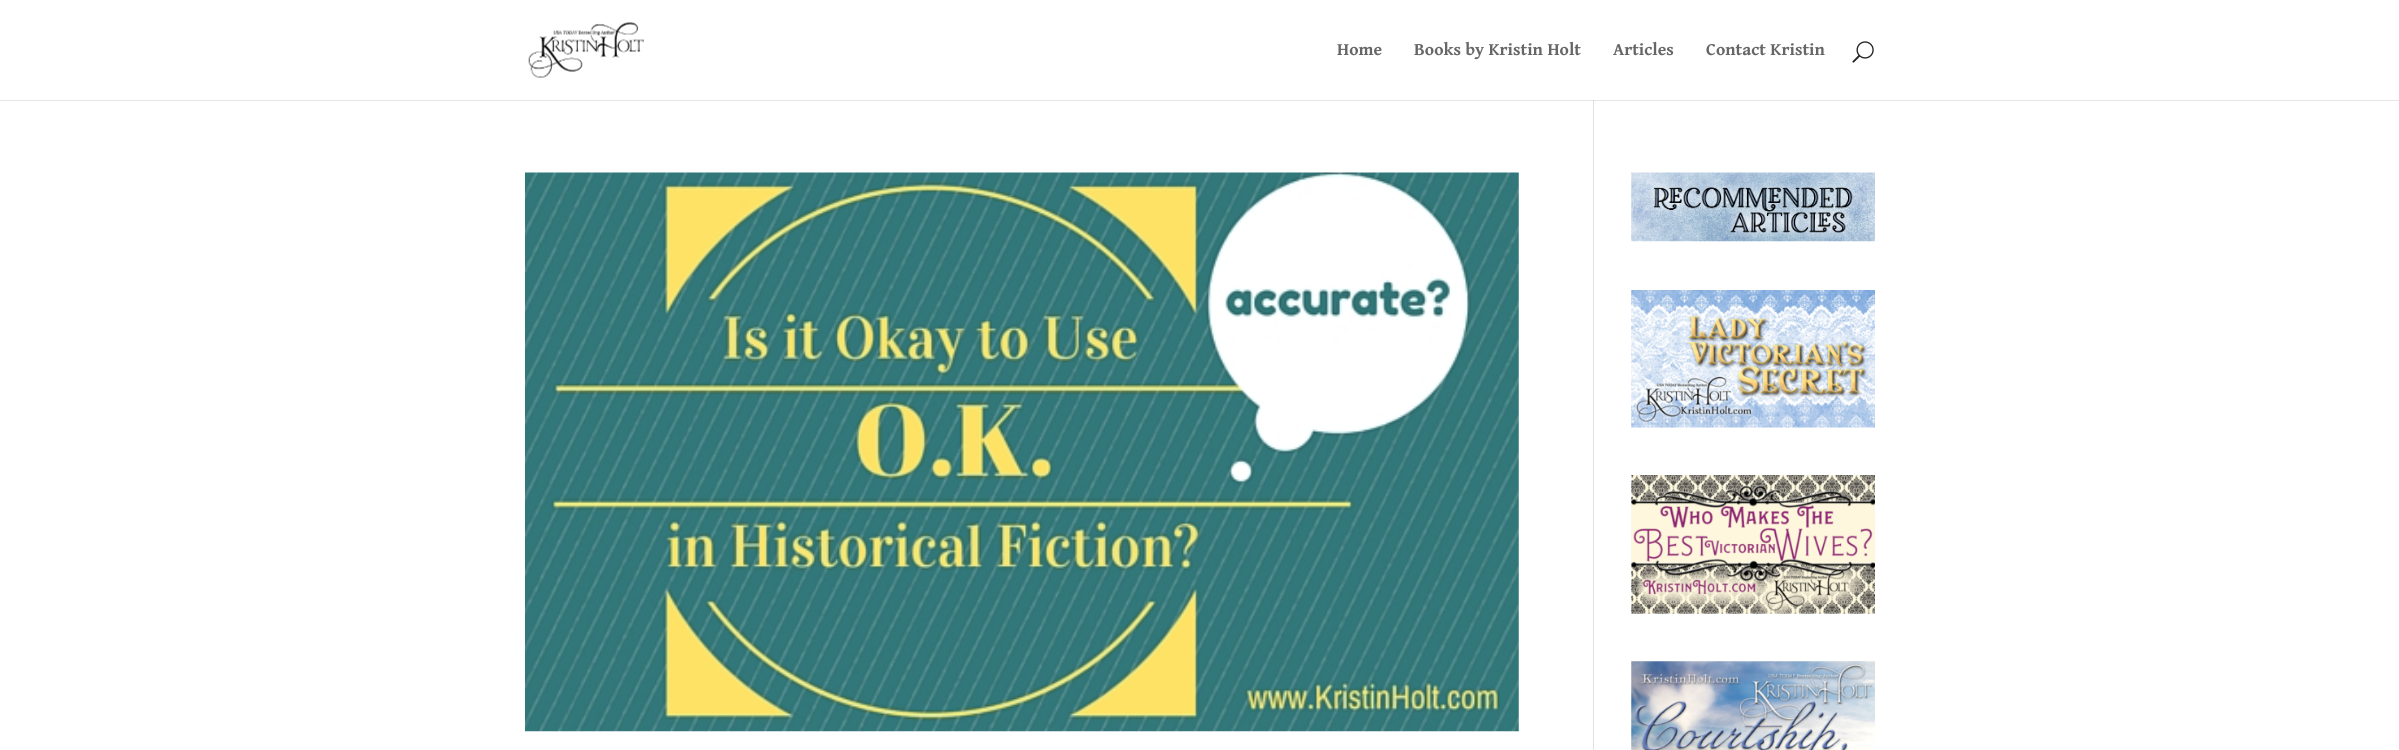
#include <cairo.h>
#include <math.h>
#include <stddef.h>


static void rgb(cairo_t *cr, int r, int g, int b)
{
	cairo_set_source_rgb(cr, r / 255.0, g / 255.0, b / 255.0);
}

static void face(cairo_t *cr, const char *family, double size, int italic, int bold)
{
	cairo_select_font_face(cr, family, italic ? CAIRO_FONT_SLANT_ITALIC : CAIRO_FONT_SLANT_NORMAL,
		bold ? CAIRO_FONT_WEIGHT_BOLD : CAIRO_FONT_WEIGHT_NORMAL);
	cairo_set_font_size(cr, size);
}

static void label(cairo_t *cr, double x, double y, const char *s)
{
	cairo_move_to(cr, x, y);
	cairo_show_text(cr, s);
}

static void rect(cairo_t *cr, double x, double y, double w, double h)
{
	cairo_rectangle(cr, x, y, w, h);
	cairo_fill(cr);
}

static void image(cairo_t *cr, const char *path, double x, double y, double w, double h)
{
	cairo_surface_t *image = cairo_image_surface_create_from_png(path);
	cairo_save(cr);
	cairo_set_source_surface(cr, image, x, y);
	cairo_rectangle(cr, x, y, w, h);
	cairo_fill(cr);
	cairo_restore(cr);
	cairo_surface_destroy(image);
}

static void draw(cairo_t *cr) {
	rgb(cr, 255, 255, 255);
	cairo_paint(cr);
	rgb(cr, 230, 230, 230);
	rect(cr, 0, 100, 2399, 1);
	image(cr, "image0.png", 528, 22, 116, 56);
	face(cr, "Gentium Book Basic", 17.5, 0, 1);
	rgb(cr, 102, 102, 102);
	label(cr, 1337, 55, "Home");
	label(cr, 1414, 55, "Books by Kristin Holt");
	label(cr, 1613, 55, "Articles");
	label(cr, 1706, 55, "Contact Kristin");
	image(cr, "image1.png", 1852, 41, 22, 22);
	rgb(cr, 226, 226, 226);
	rect(cr, 1593, 100, 1, 650);
	rgb(cr, 203, 203, 203);
	rect(cr, 1593, 100, 1, 1);
	image(cr, "image2.png", 525, 172, 994, 560);
	image(cr, "image3.png", 1631, 172, 244, 70);
	image(cr, "image4.png", 1631, 290, 244, 138);
	image(cr, "image5.png", 1631, 475, 244, 139);
	image(cr, "image6.png", 1631, 661, 244, 89);
}

int main(void) {
	cairo_surface_t *surface = cairo_image_surface_create(CAIRO_FORMAT_RGB24, 2399, 750);
	cairo_t *cr = cairo_create(surface);
	cairo_font_options_t *options = cairo_font_options_create();
	cairo_font_options_set_hint_metrics(options, CAIRO_HINT_METRICS_OFF);
	cairo_font_options_set_hint_style(options, CAIRO_HINT_STYLE_NONE);
	cairo_set_font_options(cr, options);
	cairo_set_miter_limit(cr, 4);
	draw(cr);
	cairo_surface_write_to_png(surface, "render.png");
	cairo_font_options_destroy(options);
	cairo_destroy(cr);
	cairo_surface_destroy(surface);
	return 0;
}
